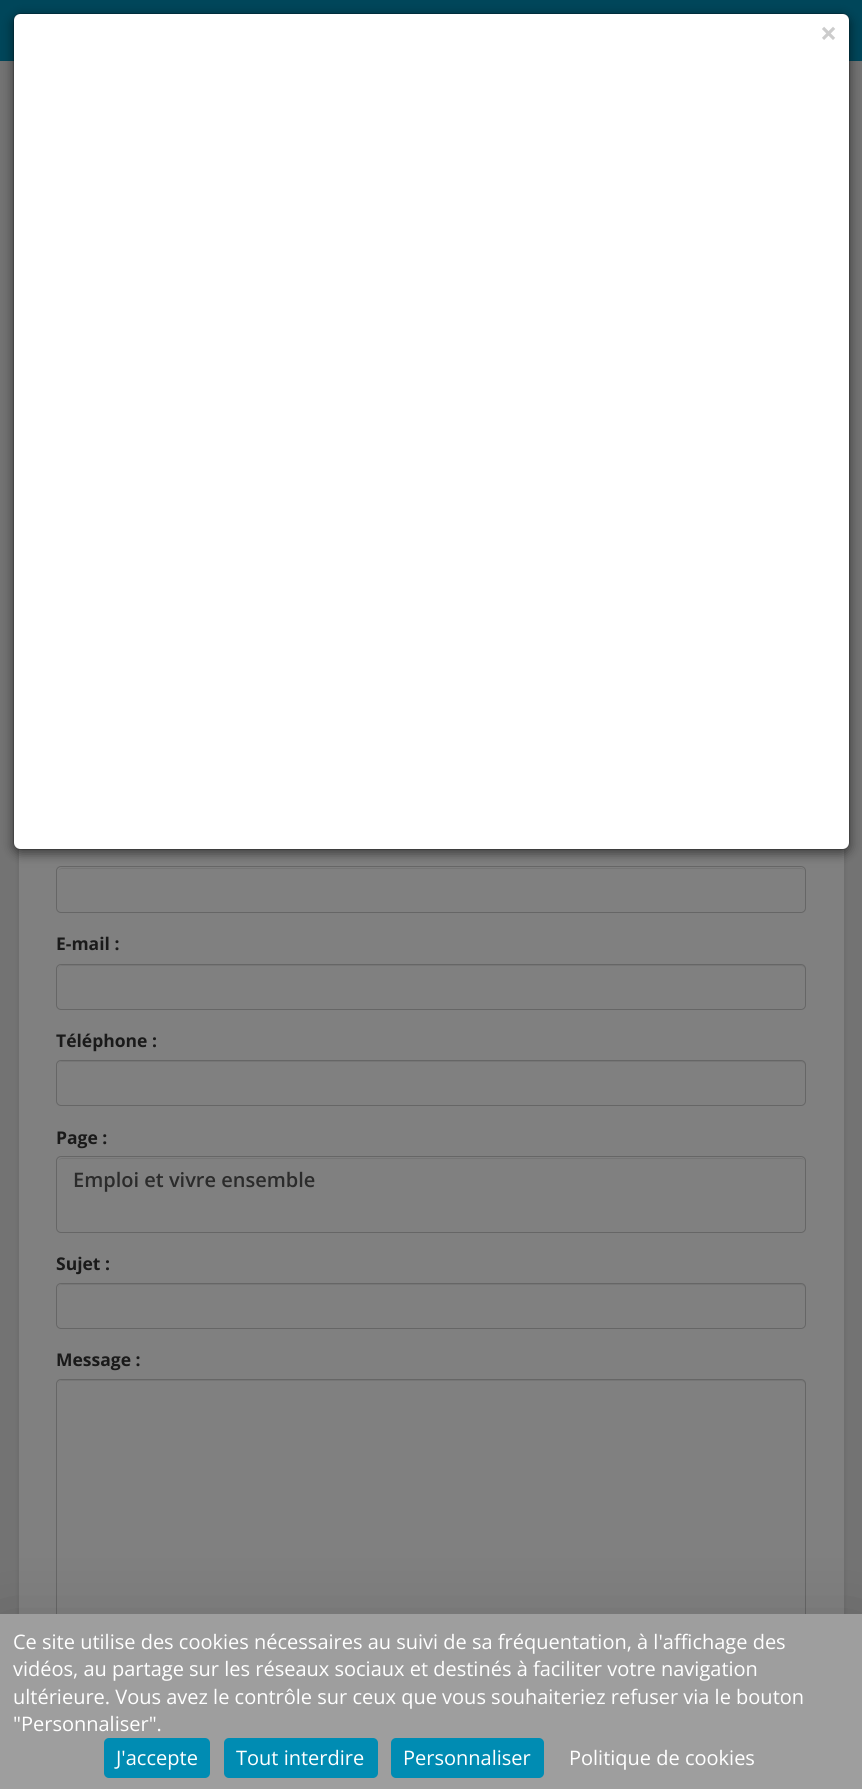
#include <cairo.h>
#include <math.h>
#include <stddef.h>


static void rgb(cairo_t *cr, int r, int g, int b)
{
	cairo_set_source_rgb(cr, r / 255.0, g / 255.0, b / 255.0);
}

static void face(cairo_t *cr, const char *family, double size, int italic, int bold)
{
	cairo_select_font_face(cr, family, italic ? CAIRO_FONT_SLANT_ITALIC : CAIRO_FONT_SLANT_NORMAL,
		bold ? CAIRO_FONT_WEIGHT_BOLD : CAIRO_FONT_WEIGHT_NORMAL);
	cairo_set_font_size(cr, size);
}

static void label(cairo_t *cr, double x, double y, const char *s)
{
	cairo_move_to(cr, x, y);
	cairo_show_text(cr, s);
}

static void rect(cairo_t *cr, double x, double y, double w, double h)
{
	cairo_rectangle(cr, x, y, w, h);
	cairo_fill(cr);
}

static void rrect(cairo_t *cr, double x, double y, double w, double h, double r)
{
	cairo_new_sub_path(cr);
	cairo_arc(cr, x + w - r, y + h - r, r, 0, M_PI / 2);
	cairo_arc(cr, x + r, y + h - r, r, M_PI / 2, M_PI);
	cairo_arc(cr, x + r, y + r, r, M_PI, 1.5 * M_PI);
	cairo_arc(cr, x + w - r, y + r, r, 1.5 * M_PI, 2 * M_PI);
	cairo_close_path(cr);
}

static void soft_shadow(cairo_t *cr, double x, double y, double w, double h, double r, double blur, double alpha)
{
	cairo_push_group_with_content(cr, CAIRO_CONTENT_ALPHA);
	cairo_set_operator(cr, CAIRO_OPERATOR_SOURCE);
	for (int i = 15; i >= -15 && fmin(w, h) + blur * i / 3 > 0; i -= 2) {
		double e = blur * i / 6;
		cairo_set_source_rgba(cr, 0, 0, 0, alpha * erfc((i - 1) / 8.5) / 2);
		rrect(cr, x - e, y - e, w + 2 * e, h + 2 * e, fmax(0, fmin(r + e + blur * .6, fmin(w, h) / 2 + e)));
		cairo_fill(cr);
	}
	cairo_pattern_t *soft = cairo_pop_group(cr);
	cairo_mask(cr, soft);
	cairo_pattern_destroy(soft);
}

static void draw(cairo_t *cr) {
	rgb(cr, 115, 115, 115);
	cairo_paint(cr);
	rgb(cr, 0, 70, 90);
	rect(cr, 0, 0, 862, 61);
	rgb(cr, 0, 0, 0);
	soft_shadow(cr, 19, 706, 825, 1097, 5, 3, 0.1);
	rgb(cr, 128, 128, 128);
	rect(cr, 19, 848, 825, 766);
	rgb(cr, 118, 118, 118);
	cairo_new_path(cr);
	cairo_move_to(cr, 61, 869);
	cairo_line_to(cr, 801, 869);
	cairo_curve_to(cr, 803, 869, 805, 870, 805, 872);
	cairo_curve_to(cr, 805, 870, 803, 868, 801, 868);
	cairo_line_to(cr, 62, 868);
	cairo_curve_to(cr, 61, 868, 59, 869, 59, 870);
	cairo_close_path(cr);
	cairo_fill(cr);
	rrect(cr, 56.5, 866.5, 749, 46, 4.5);
	rgb(cr, 102, 102, 102);
	cairo_set_line_width(cr, 1);
	cairo_stroke(cr);
	rgb(cr, 0, 0, 0);
	soft_shadow(cr, 13, 16, 837, 838, 8, 5.5, 0.5);
	rgb(cr, 255, 255, 255);
	rrect(cr, 14, 14, 835, 835, 6);
	cairo_fill(cr);
	rrect(cr, 13.5, 13.5, 836, 836, 7.5);
	cairo_set_source_rgba(cr, 0, 0, 0, 0.2);
	cairo_stroke(cr);
	face(cr, "Open Sans", 30, 0, 1);
	rgb(cr, 204, 204, 204);
	label(cr, 820, 44, "×");
	face(cr, "Open Sans", 17.5, 0, 1);
	rgb(cr, 26, 26, 26);
	label(cr, 56, 950, "E-mail :");
	rgb(cr, 118, 118, 118);
	cairo_new_path(cr);
	cairo_move_to(cr, 61, 966);
	cairo_line_to(cr, 801, 966);
	cairo_curve_to(cr, 803, 966, 805, 968, 805, 970);
	cairo_line_to(cr, 805, 969);
	cairo_curve_to(cr, 805, 967, 803, 965, 801, 965);
	cairo_line_to(cr, 62, 965);
	cairo_curve_to(cr, 60, 965, 58, 967, 58, 969);
	cairo_line_to(cr, 58, 970);
	cairo_curve_to(cr, 58, 968, 59, 966, 61, 966);
	cairo_close_path(cr);
	cairo_fill(cr);
	rrect(cr, 56.5, 964.5, 749, 45, 4.5);
	rgb(cr, 102, 102, 102);
	cairo_stroke(cr);
	rgb(cr, 26, 26, 26);
	label(cr, 56, 1047, "Téléphone :");
	rgb(cr, 118, 118, 118);
	cairo_new_path(cr);
	cairo_move_to(cr, 61, 1062);
	cairo_line_to(cr, 801, 1062);
	cairo_curve_to(cr, 803, 1062, 805, 1064, 805, 1066);
	cairo_line_to(cr, 805, 1065);
	cairo_curve_to(cr, 805, 1063, 803, 1061, 801, 1061);
	cairo_line_to(cr, 62, 1061);
	cairo_curve_to(cr, 60, 1061, 58, 1063, 58, 1065);
	cairo_line_to(cr, 58, 1066);
	cairo_curve_to(cr, 58, 1064, 59, 1062, 61, 1062);
	cairo_close_path(cr);
	cairo_fill(cr);
	rrect(cr, 56.5, 1060.5, 749, 45, 4.5);
	rgb(cr, 102, 102, 102);
	cairo_stroke(cr);
	rgb(cr, 26, 26, 26);
	label(cr, 56, 1144, "Page :");
	rgb(cr, 118, 118, 118);
	cairo_new_path(cr);
	cairo_move_to(cr, 61, 1159);
	cairo_line_to(cr, 801, 1159);
	cairo_curve_to(cr, 803, 1159, 805, 1160, 805, 1162);
	cairo_curve_to(cr, 805, 1160, 803, 1158, 801, 1158);
	cairo_line_to(cr, 62, 1158);
	cairo_curve_to(cr, 61, 1158, 59, 1159, 59, 1160);
	cairo_close_path(cr);
	cairo_fill(cr);
	rrect(cr, 56.5, 1156.5, 749, 76, 4.5);
	rgb(cr, 102, 102, 102);
	cairo_stroke(cr);
	face(cr, "Open Sans SemiBold", 20, 0, 0);
	rgb(cr, 43, 43, 43);
	label(cr, 73, 1187, "Emploi et vivre ensemble");
	face(cr, "Open Sans", 17.5, 0, 1);
	rgb(cr, 26, 26, 26);
	label(cr, 56, 1270, "Sujet :");
	rgb(cr, 118, 118, 118);
	cairo_new_path(cr);
	cairo_move_to(cr, 61, 1285);
	cairo_line_to(cr, 801, 1285);
	cairo_curve_to(cr, 803, 1285, 805, 1287, 805, 1289);
	cairo_line_to(cr, 805, 1288);
	cairo_curve_to(cr, 805, 1286, 803, 1284, 801, 1284);
	cairo_line_to(cr, 62, 1284);
	cairo_curve_to(cr, 60, 1284, 58, 1286, 58, 1288);
	cairo_line_to(cr, 58, 1289);
	cairo_curve_to(cr, 58, 1287, 59, 1285, 61, 1285);
	cairo_close_path(cr);
	cairo_fill(cr);
	rrect(cr, 56.5, 1283.5, 749, 45, 4.5);
	rgb(cr, 102, 102, 102);
	cairo_stroke(cr);
	rgb(cr, 26, 26, 26);
	label(cr, 56, 1366, "Message :");
	rgb(cr, 118, 118, 118);
	cairo_new_path(cr);
	cairo_move_to(cr, 61, 1381);
	cairo_line_to(cr, 801, 1381);
	cairo_curve_to(cr, 803, 1381, 805, 1383, 805, 1385);
	cairo_line_to(cr, 805, 1384);
	cairo_curve_to(cr, 805, 1382, 803, 1380, 801, 1380);
	cairo_line_to(cr, 62, 1380);
	cairo_curve_to(cr, 60, 1380, 58, 1382, 58, 1384);
	cairo_line_to(cr, 58, 1385);
	cairo_curve_to(cr, 58, 1383, 59, 1381, 61, 1381);
	cairo_close_path(cr);
	cairo_fill(cr);
	rrect(cr, 56.5, 1379.5, 749, 311, 4.5);
	rgb(cr, 102, 102, 102);
	cairo_stroke(cr);
	rgb(cr, 0, 0, 0);
	soft_shadow(cr, 0, 1639, 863, 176, 0, 37.5, 0.25);
	rgb(cr, 158, 158, 158);
	rect(cr, 0, 1614, 862, 175);
	face(cr, "Open Sans", 20, 0, 0);
	rgb(cr, 255, 255, 255);
	label(cr, 13, 1649, "Ce site utilise des cookies nécessaires au suivi de sa fréquentation, à l'affichage des");
	label(cr, 13, 1676, "vidéos, au partage sur les réseaux sociaux et destinés à faciliter votre navigation");
	label(cr, 13, 1704, "ultérieure. Vous avez le contrôle sur ceux que vous souhaiteriez refuser via le bouton");
	label(cr, 13, 1731, "\"Personnaliser\".");
	rgb(cr, 0, 140, 179);
	rrect(cr, 104, 1738, 106, 40, 5);
	cairo_fill(cr);
	rgb(cr, 255, 255, 255);
	label(cr, 116, 1765, "J'accepte");
	rgb(cr, 0, 140, 179);
	rrect(cr, 224, 1738, 154, 40, 5);
	cairo_fill(cr);
	rgb(cr, 255, 255, 255);
	label(cr, 236, 1765, "Tout interdire");
	rgb(cr, 0, 140, 179);
	rrect(cr, 391, 1738, 153, 40, 5);
	cairo_fill(cr);
	rgb(cr, 255, 255, 255);
	label(cr, 403, 1765, "Personnaliser");
	label(cr, 569, 1765, "Politique de cookies");
}

int main(void) {
	cairo_surface_t *surface = cairo_image_surface_create(CAIRO_FORMAT_RGB24, 862, 1789);
	cairo_t *cr = cairo_create(surface);
	cairo_font_options_t *options = cairo_font_options_create();
	cairo_font_options_set_hint_metrics(options, CAIRO_HINT_METRICS_OFF);
	cairo_font_options_set_hint_style(options, CAIRO_HINT_STYLE_NONE);
	cairo_set_font_options(cr, options);
	cairo_set_miter_limit(cr, 4);
	draw(cr);
	cairo_surface_write_to_png(surface, "render.png");
	cairo_font_options_destroy(options);
	cairo_destroy(cr);
	cairo_surface_destroy(surface);
	return 0;
}
